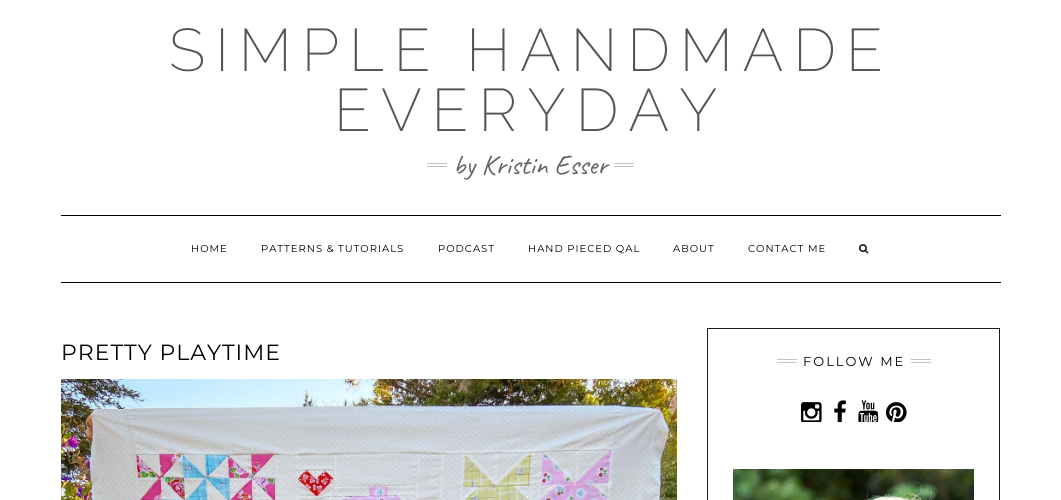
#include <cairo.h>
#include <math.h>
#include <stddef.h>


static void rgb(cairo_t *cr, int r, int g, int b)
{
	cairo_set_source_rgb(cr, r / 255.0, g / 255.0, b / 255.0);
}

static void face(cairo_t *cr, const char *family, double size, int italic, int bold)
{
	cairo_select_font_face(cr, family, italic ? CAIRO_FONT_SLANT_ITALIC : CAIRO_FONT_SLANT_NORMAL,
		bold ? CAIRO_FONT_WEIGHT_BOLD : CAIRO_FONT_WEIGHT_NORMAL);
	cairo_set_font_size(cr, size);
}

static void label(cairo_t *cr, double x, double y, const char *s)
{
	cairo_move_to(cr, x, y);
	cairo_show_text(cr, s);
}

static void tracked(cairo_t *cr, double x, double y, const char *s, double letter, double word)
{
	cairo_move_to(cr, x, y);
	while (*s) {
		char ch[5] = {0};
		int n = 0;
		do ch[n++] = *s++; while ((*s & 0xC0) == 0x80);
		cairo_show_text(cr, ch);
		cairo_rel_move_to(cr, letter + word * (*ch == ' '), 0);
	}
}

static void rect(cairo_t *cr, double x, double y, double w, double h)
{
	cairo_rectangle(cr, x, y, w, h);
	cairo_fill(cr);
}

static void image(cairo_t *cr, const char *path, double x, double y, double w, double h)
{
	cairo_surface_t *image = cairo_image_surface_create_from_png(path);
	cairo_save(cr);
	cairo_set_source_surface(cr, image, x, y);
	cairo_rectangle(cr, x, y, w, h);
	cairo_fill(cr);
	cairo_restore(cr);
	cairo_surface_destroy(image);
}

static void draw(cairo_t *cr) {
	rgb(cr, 255, 255, 255);
	cairo_paint(cr);
	face(cr, "Raleway Thin", 60, 0, 0);
	rgb(cr, 84, 84, 84);
	tracked(cr, 169, 71, "SIMPLE HANDMADE", 10, 0);
	tracked(cr, 334, 131, "EVERYDAY", 10, 0);
	rgb(cr, 196, 196, 196);
	rect(cr, 427, 163, 20, 1);
	rect(cr, 427, 166, 20, 1);
	face(cr, "Caveat", 28, 0, 0);
	rgb(cr, 100, 100, 100);
	label(cr, 453, 174, "by Kristin Esser");
	rgb(cr, 196, 196, 196);
	rect(cr, 614, 163, 20, 1);
	rect(cr, 614, 166, 20, 1);
	rgb(cr, 0, 0, 0);
	rect(cr, 61, 215, 940, 1);
	rect(cr, 61, 282, 940, 1);
	face(cr, "Montserrat Thin", 10, 0, 0);
	tracked(cr, 191, 252, "HOME", 1, 0);
	tracked(cr, 261, 252, "PATTERNS & TUTORIALS", 1, 0);
	tracked(cr, 438, 252, "PODCAST", 1, 0);
	tracked(cr, 528, 252, "HAND PIECED QAL", 1, 0);
	tracked(cr, 673, 252, "ABOUT", 1, 0);
	tracked(cr, 748, 252, "CONTACT ME", 1, 0);
	image(cr, "image0.png", 859, 244, 10, 10);
	face(cr, "Montserrat Thin", 22, 0, 0);
	tracked(cr, 61, 360, "PRETTY PLAYTIME", 1, 0);
	image(cr, "image1.png", 61, 379, 616, 121);
	cairo_rectangle(cr, 707.5, 328.5, 292, 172);
	rgb(cr, 26, 26, 26);
	cairo_set_line_width(cr, 1);
	cairo_stroke(cr);
	rgb(cr, 196, 196, 196);
	rect(cr, 777, 359, 20, 1);
	rect(cr, 777, 362, 20, 1);
	face(cr, "Montserrat Thin", 13, 0, 0);
	rgb(cr, 0, 0, 0);
	tracked(cr, 803, 366, "FOLLOW ME", 2, 0);
	rgb(cr, 196, 196, 196);
	rect(cr, 911, 359, 20, 1);
	rect(cr, 911, 362, 20, 1);
	image(cr, "image2.png", 801, 402, 21, 20);
	image(cr, "image3.png", 834, 400, 12, 22);
	image(cr, "image4.png", 858, 400, 21, 22);
	image(cr, "image5.png", 886, 402, 21, 20);
	image(cr, "image6.png", 733, 469, 241, 31);
}

int main(void) {
	cairo_surface_t *surface = cairo_image_surface_create(CAIRO_FORMAT_RGB24, 1061, 500);
	cairo_t *cr = cairo_create(surface);
	cairo_font_options_t *options = cairo_font_options_create();
	cairo_font_options_set_hint_metrics(options, CAIRO_HINT_METRICS_OFF);
	cairo_font_options_set_hint_style(options, CAIRO_HINT_STYLE_NONE);
	cairo_set_font_options(cr, options);
	cairo_set_miter_limit(cr, 4);
	draw(cr);
	cairo_surface_write_to_png(surface, "render.png");
	cairo_font_options_destroy(options);
	cairo_destroy(cr);
	cairo_surface_destroy(surface);
	return 0;
}
